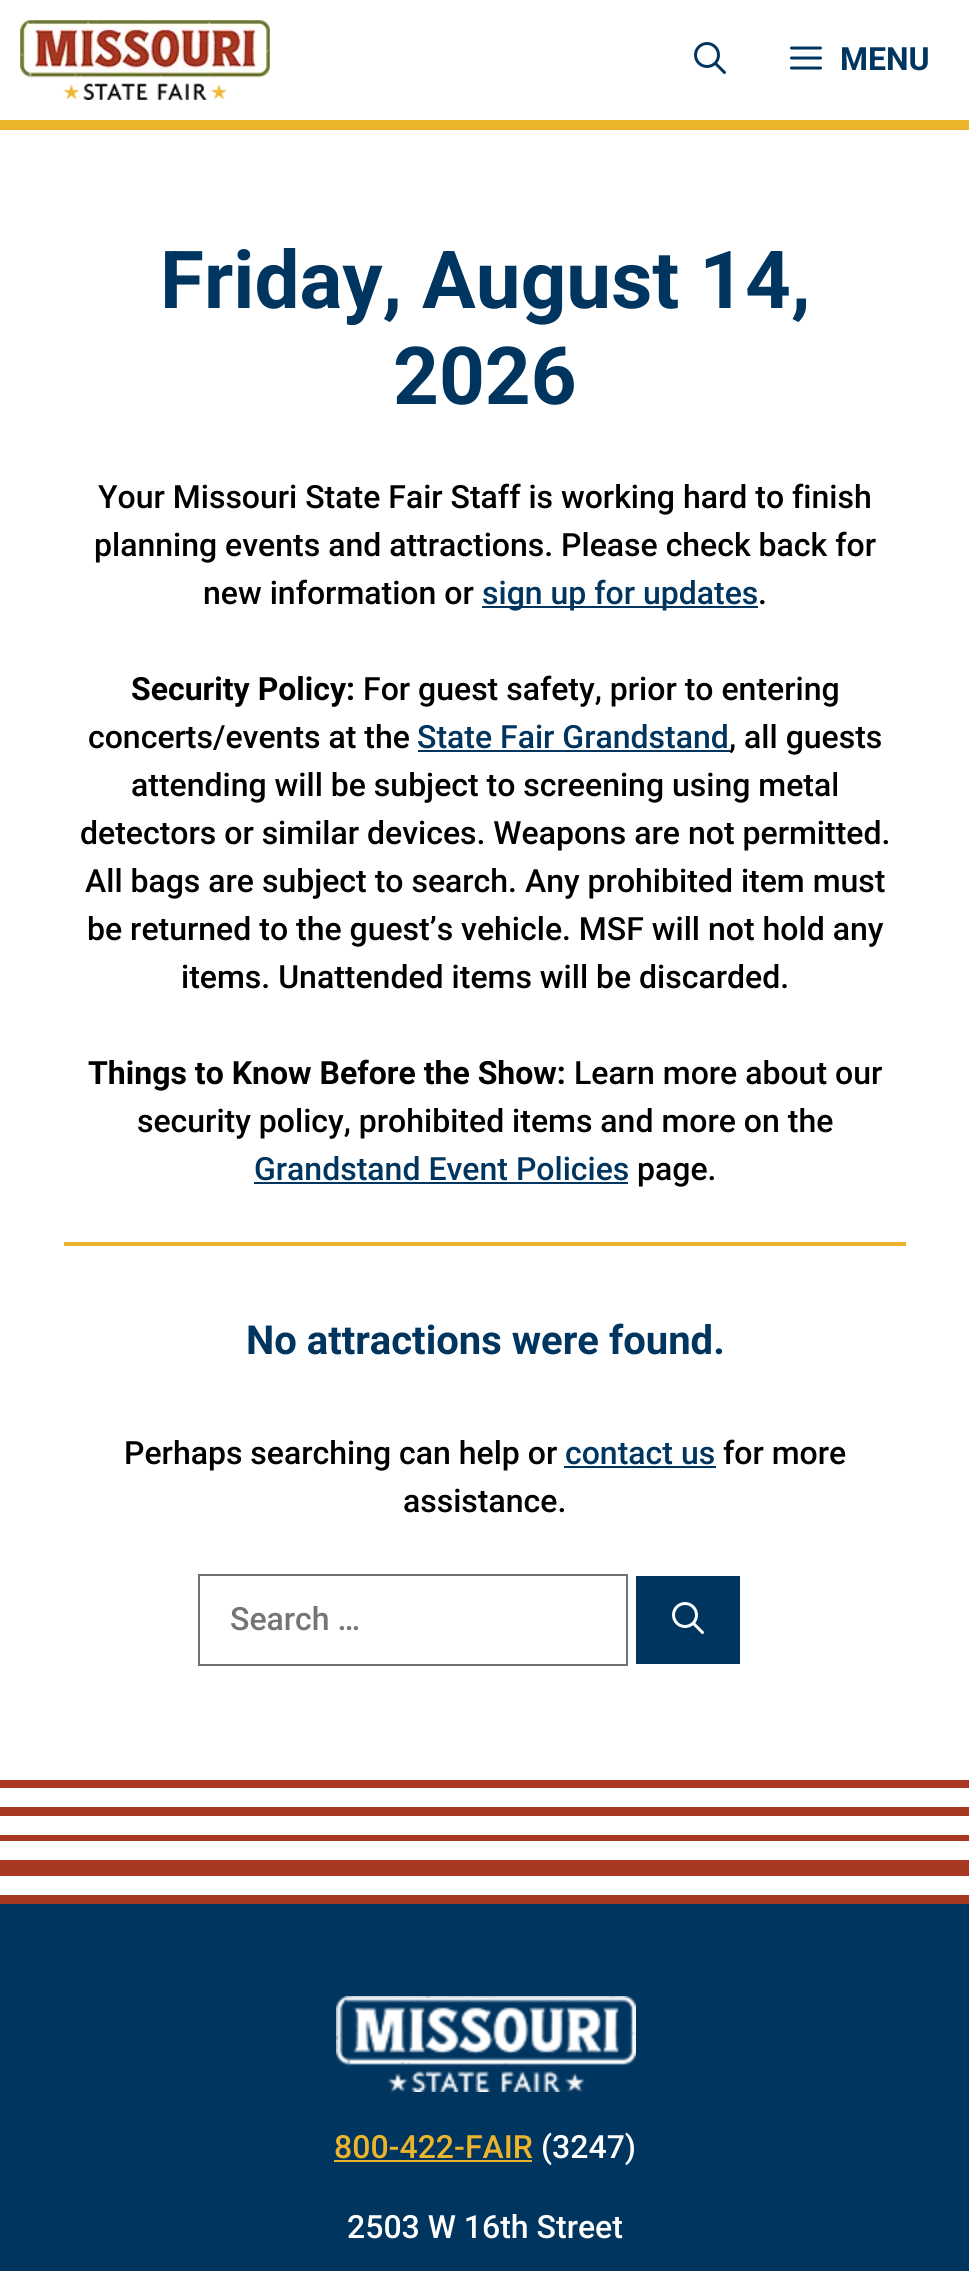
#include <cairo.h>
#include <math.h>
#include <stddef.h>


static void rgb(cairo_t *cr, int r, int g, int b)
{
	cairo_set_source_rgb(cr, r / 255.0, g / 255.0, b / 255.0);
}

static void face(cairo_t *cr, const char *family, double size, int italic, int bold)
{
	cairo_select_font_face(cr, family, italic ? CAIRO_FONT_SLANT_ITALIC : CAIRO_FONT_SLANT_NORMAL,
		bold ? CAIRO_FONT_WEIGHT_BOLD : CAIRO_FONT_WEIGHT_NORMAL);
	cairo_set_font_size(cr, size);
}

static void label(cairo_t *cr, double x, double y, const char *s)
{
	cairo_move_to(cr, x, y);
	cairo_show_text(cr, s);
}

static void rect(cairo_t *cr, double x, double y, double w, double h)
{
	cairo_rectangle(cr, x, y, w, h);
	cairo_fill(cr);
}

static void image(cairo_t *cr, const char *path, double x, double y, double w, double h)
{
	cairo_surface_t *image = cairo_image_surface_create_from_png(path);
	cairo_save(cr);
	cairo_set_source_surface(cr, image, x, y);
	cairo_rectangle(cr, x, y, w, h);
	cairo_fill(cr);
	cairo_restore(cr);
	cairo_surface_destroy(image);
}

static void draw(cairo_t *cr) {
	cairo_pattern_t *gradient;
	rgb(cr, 255, 255, 255);
	cairo_paint(cr);
	rgb(cr, 236, 180, 43);
	rect(cr, 0, 120, 969, 10);
	image(cr, "image0.png", 20, 20, 250, 80);
	image(cr, "image1.png", 694, 42, 32, 32);
	image(cr, "image2.png", 790, 46, 32, 24);
	face(cr, "Roboto", 32, 0, 1);
	rgb(cr, 0, 53, 96);
	label(cr, 840, 70, "MENU");
	face(cr, "Roboto", 80, 0, 1);
	label(cr, 160, 308, "Friday, August 14,");
	label(cr, 393, 404, "2026");
	rgb(cr, 236, 180, 43);
	rect(cr, 64, 1242, 842, 4);
	face(cr, "Roboto Medium", 32, 0, 0);
	rgb(cr, 0, 0, 0);
	label(cr, 98, 508, "Your Missouri State Fair Staff is working hard to finish");
	label(cr, 94, 556, "planning events and attractions. Please check back for");
	label(cr, 203, 604, "new information or");
	rgb(cr, 0, 53, 96);
	rect(cr, 482, 606, 276, 2);
	label(cr, 482, 604, "sign up for updates");
	rgb(cr, 0, 0, 0);
	label(cr, 758, 604, ".");
	face(cr, "Roboto", 32, 0, 1);
	label(cr, 131, 700, "Security Policy:");
	face(cr, "Roboto Medium", 32, 0, 0);
	label(cr, 363, 700, "For guest safety, prior to entering");
	label(cr, 88, 748, "concerts/events at the");
	rgb(cr, 0, 53, 96);
	label(cr, 417, 748, "State Fair Grandstand");
	rect(cr, 418, 750, 312, 2);
	rgb(cr, 0, 0, 0);
	label(cr, 729, 748, ", all guests");
	label(cr, 131, 796, "attending will be subject to screening using metal");
	label(cr, 80, 844, "detectors or similar devices. Weapons are not permitted.");
	label(cr, 85, 892, "All bags are subject to search. Any prohibited item must");
	label(cr, 87, 940, "be returned to the guest’s vehicle. MSF will not hold any");
	label(cr, 181, 988, "items. Unattended items will be discarded.");
	face(cr, "Roboto", 32, 0, 1);
	label(cr, 88, 1084, "Things to Know Before the Show:");
	face(cr, "Roboto Medium", 32, 0, 0);
	label(cr, 574, 1084, "Learn more about our");
	label(cr, 137, 1132, "security policy, prohibited items and more on the");
	rgb(cr, 0, 53, 96);
	label(cr, 254, 1180, "Grandstand Event Policies");
	rect(cr, 254, 1182, 374, 2);
	rgb(cr, 0, 0, 0);
	label(cr, 637, 1180, "page.");
	face(cr, "Roboto", 40, 0, 1);
	rgb(cr, 0, 53, 96);
	label(cr, 246, 1354, "No attractions were found.");
	face(cr, "Roboto Medium", 32, 0, 0);
	rgb(cr, 0, 0, 0);
	label(cr, 124, 1464, "Perhaps searching can help or");
	rgb(cr, 0, 53, 96);
	label(cr, 565, 1464, "contact us");
	rect(cr, 564, 1466, 152, 2);
	rgb(cr, 0, 0, 0);
	label(cr, 723, 1464, "for more");
	label(cr, 403, 1512, "assistance.");
	cairo_rectangle(cr, 199, 1575, 428, 90);
	rgb(cr, 112, 112, 112);
	cairo_stroke(cr);
	rgb(cr, 117, 117, 117);
	label(cr, 230, 1630, "Search …");
	rgb(cr, 0, 53, 96);
	rect(cr, 636, 1576, 104, 88);
	image(cr, "image3.png", 672, 1602, 32, 32);
	gradient = cairo_pattern_create_linear(485, 1904, 485, 1728);
	cairo_pattern_add_color_stop_rgba(gradient, 0, 0.659, 0.216, 0.137, 1);
	cairo_pattern_add_color_stop_rgba(gradient, 0.05, 0.659, 0.216, 0.137, 1);
	cairo_pattern_add_color_stop_rgba(gradient, 0.05, 1, 1, 1, 1);
	cairo_pattern_add_color_stop_rgba(gradient, 0.16, 1, 1, 1, 1);
	cairo_pattern_add_color_stop_rgba(gradient, 0.16, 0.659, 0.216, 0.137, 1);
	cairo_pattern_add_color_stop_rgba(gradient, 0.25, 0.659, 0.216, 0.137, 1);
	cairo_pattern_add_color_stop_rgba(gradient, 0.25, 1, 1, 1, 1);
	cairo_pattern_add_color_stop_rgba(gradient, 0.36, 1, 1, 1, 1);
	cairo_pattern_add_color_stop_rgba(gradient, 0.36, 0.659, 0.216, 0.137, 1);
	cairo_pattern_add_color_stop_rgba(gradient, 0.39, 0.659, 0.216, 0.137, 1);
	cairo_pattern_add_color_stop_rgba(gradient, 0.39, 1, 1, 1, 1);
	cairo_pattern_add_color_stop_rgba(gradient, 0.5, 1, 1, 1, 1);
	cairo_pattern_add_color_stop_rgba(gradient, 0.5, 0.659, 0.216, 0.137, 1);
	cairo_pattern_add_color_stop_rgba(gradient, 0.55, 0.659, 0.216, 0.137, 1);
	cairo_pattern_add_color_stop_rgba(gradient, 0.55, 1, 1, 1, 1);
	cairo_pattern_add_color_stop_rgba(gradient, 0.66, 1, 1, 1, 1);
	cairo_pattern_add_color_stop_rgba(gradient, 0.66, 0.659, 0.216, 0.137, 1);
	cairo_pattern_add_color_stop_rgba(gradient, 0.75, 0.659, 0.216, 0.137, 1);
	cairo_pattern_add_color_stop_rgba(gradient, 0.75, 1, 1, 1, 1);
	cairo_pattern_add_color_stop_rgba(gradient, 0.86, 1, 1, 1, 1);
	cairo_pattern_add_color_stop_rgba(gradient, 0.86, 0.659, 0.216, 0.137, 1);
	cairo_pattern_add_color_stop_rgba(gradient, 0.89, 0.659, 0.216, 0.137, 1);
	cairo_pattern_add_color_stop_rgba(gradient, 0.89, 1, 1, 1, 1);
	cairo_pattern_add_color_stop_rgba(gradient, 1, 1, 1, 1, 1);
	cairo_set_source(cr, gradient);
	cairo_pattern_destroy(gradient);
	rect(cr, 0, 1780, 969, 124);
	rgb(cr, 0, 53, 96);
	rect(cr, 0, 1904, 969, 367);
	image(cr, "image4.png", 336, 1996, 300, 96);
	rgb(cr, 236, 180, 43);
	label(cr, 334, 2158, "800-422-FAIR");
	rect(cr, 334, 2160, 198, 2);
	rgb(cr, 255, 255, 255);
	label(cr, 541, 2158, "(3247)");
	label(cr, 347, 2238, "2503 W 16th Street");
}

int main(void) {
	cairo_surface_t *surface = cairo_image_surface_create(CAIRO_FORMAT_RGB24, 969, 2271);
	cairo_t *cr = cairo_create(surface);
	cairo_font_options_t *options = cairo_font_options_create();
	cairo_font_options_set_hint_metrics(options, CAIRO_HINT_METRICS_OFF);
	cairo_font_options_set_hint_style(options, CAIRO_HINT_STYLE_NONE);
	cairo_set_font_options(cr, options);
	cairo_set_miter_limit(cr, 4);
	draw(cr);
	cairo_surface_write_to_png(surface, "render.png");
	cairo_font_options_destroy(options);
	cairo_destroy(cr);
	cairo_surface_destroy(surface);
	return 0;
}
